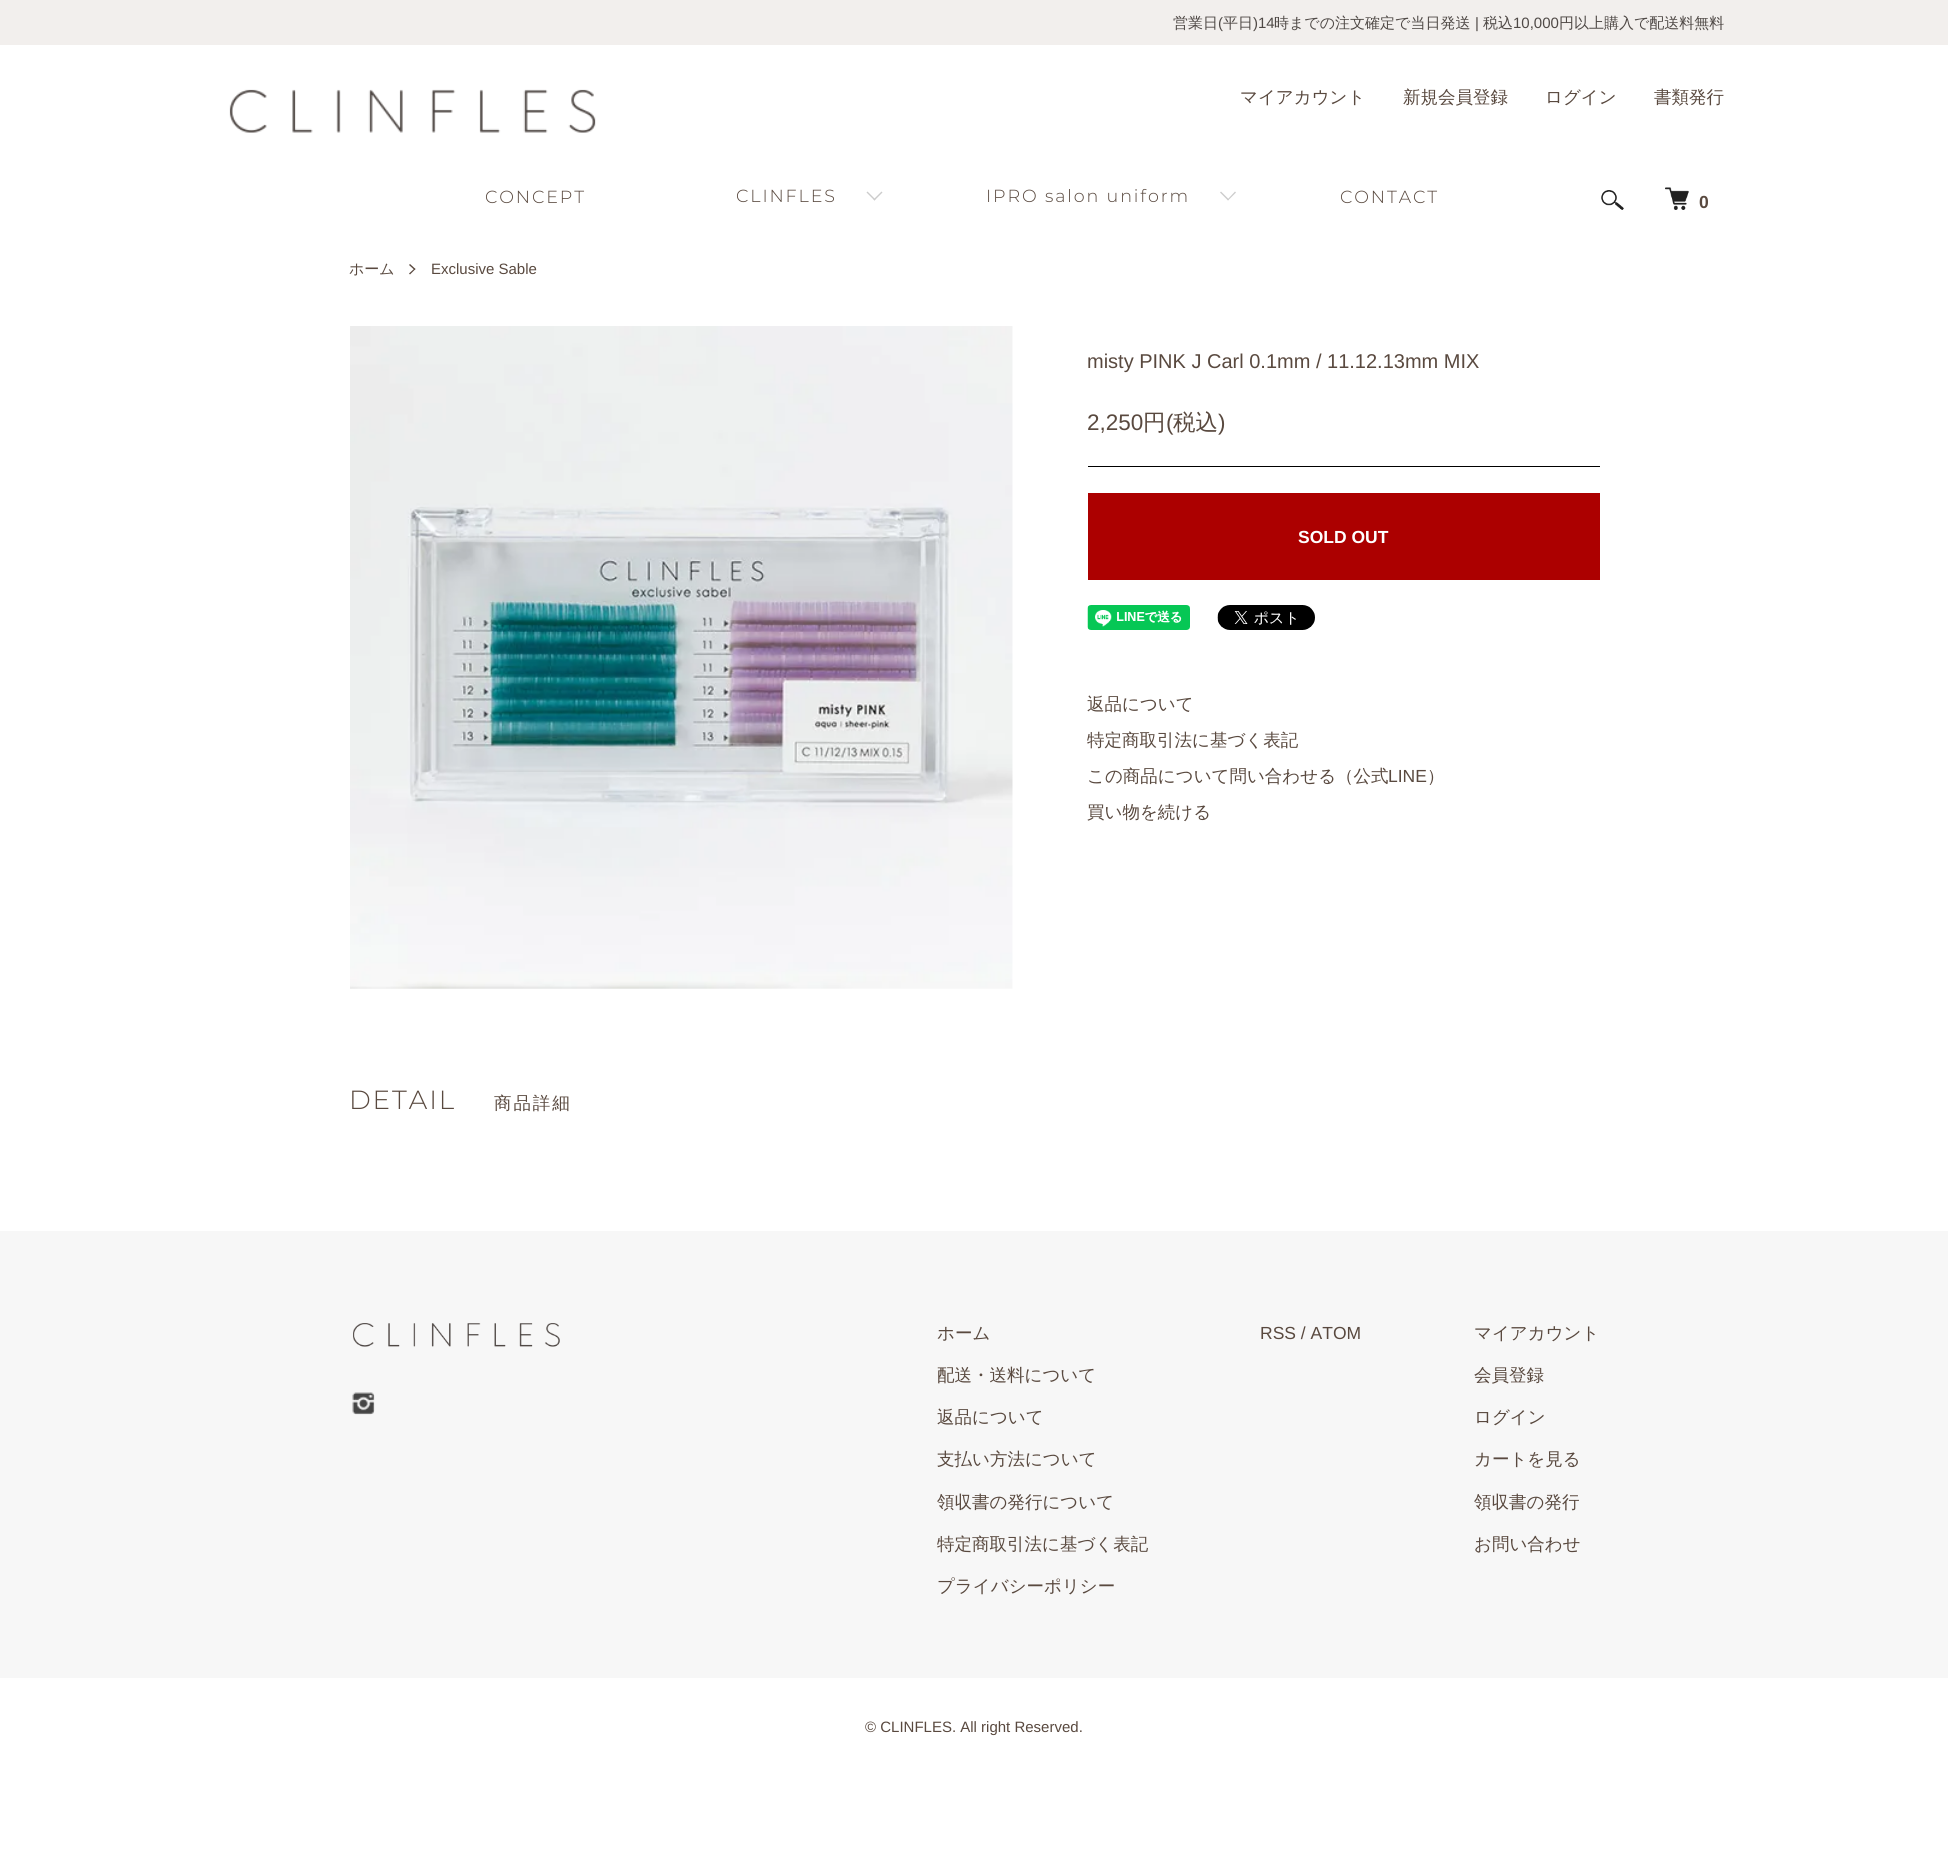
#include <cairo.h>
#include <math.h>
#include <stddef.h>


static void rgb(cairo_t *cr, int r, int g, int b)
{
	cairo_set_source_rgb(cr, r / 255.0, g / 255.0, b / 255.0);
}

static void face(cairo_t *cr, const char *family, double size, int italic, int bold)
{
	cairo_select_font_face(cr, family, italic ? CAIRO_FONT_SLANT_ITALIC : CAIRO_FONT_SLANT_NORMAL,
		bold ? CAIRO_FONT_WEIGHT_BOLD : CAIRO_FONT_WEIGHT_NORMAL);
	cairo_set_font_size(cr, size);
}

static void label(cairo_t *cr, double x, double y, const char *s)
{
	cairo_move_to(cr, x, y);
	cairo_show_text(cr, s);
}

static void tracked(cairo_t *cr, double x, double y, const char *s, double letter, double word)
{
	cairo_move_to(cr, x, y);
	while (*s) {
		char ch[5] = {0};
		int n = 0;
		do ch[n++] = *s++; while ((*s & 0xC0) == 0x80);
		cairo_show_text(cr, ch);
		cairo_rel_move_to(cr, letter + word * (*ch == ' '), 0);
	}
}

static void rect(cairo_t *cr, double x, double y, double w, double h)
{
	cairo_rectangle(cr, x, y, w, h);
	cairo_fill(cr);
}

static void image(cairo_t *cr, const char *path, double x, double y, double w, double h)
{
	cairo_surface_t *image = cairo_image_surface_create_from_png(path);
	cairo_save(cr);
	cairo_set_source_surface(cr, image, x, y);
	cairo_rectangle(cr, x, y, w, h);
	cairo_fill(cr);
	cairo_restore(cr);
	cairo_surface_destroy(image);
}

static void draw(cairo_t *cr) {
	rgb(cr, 255, 255, 255);
	cairo_paint(cr);
	rgb(cr, 242, 239, 237);
	rect(cr, 0, 0, 1948, 45);
	face(cr, "WenQuanYi Zen Hei Medium", 15, 0, 0);
	rgb(cr, 79, 73, 70);
	label(cr, 1173, 28, "営業日");
	face(cr, "Liberation Sans", 15, 0, 0);
	label(cr, 1218, 28, "(");
	face(cr, "WenQuanYi Zen Hei Medium", 15, 0, 0);
	label(cr, 1223, 28, "平日");
	face(cr, "Liberation Sans", 15, 0, 0);
	label(cr, 1253, 28, ")14");
	face(cr, "WenQuanYi Zen Hei Medium", 15, 0, 0);
	label(cr, 1274, 28, "時までの注文確定で当日発送");
	face(cr, "Liberation Sans", 15, 0, 0);
	label(cr, 1475, 28, "|");
	face(cr, "WenQuanYi Zen Hei Medium", 15, 0, 0);
	label(cr, 1483, 28, "税込");
	face(cr, "Liberation Sans", 15, 0, 0);
	label(cr, 1513, 28, "10,000");
	face(cr, "WenQuanYi Zen Hei Medium", 15, 0, 0);
	label(cr, 1559, 28, "円以上購入で配送料無料");
	face(cr, "WenQuanYi Zen Hei Medium", 17.5, 0, 0);
	rgb(cr, 89, 73, 63);
	label(cr, 1240, 103, "マイアカウント");
	label(cr, 1403, 103, "新規会員登録");
	label(cr, 1545, 103, "ログイン");
	label(cr, 1654, 103, "書類発行");
	face(cr, "Montserrat Thin", 17.5, 0, 0);
	tracked(cr, 485, 203, "CONCEPT", 1.9, 0);
	tracked(cr, 736, 202, "CLINFLES", 1.9, 0);
	rgb(cr, 204, 204, 204);
	cairo_new_path(cr);
	cairo_move_to(cr, 881.5, 191.5);
	cairo_line_to(cr, 882.5, 192.5);
	cairo_line_to(cr, 874.5, 200.5);
	cairo_line_to(cr, 873.5, 199.5);
	cairo_close_path(cr);
	cairo_fill(cr);
	cairo_new_path(cr);
	cairo_move_to(cr, 867.5, 191.5);
	cairo_line_to(cr, 875.5, 199.5);
	cairo_line_to(cr, 874.5, 200.5);
	cairo_line_to(cr, 866.5, 192.5);
	cairo_close_path(cr);
	cairo_fill(cr);
	rgb(cr, 89, 73, 63);
	tracked(cr, 986, 202, "IPRO salon uniform", 1.9, 0);
	rgb(cr, 204, 204, 204);
	cairo_new_path(cr);
	cairo_move_to(cr, 1235, 191.5);
	cairo_line_to(cr, 1236, 192.5);
	cairo_line_to(cr, 1228, 200.5);
	cairo_line_to(cr, 1227.5, 199.5);
	cairo_close_path(cr);
	cairo_fill(cr);
	cairo_new_path(cr);
	cairo_move_to(cr, 1221, 191.5);
	cairo_line_to(cr, 1229, 199.5);
	cairo_line_to(cr, 1228, 200.5);
	cairo_line_to(cr, 1220, 192.5);
	cairo_close_path(cr);
	cairo_fill(cr);
	rgb(cr, 89, 73, 63);
	tracked(cr, 1340, 203, "CONTACT", 1.9, 0);
	image(cr, "image0.png", 229, 89, 367, 44);
	image(cr, "image1.png", 1601, 190, 23, 20);
	image(cr, "image2.png", 1665, 187, 24, 23);
	face(cr, "Liberation Sans", 17.5, 0, 1);
	label(cr, 1699, 208, "0");
	face(cr, "WenQuanYi Zen Hei Medium", 15, 0, 0);
	label(cr, 349, 274, "ホーム");
	cairo_new_path(cr);
	cairo_move_to(cr, 409, 265);
	cairo_line_to(cr, 410, 264);
	cairo_line_to(cr, 415.5, 269);
	cairo_line_to(cr, 414.5, 270);
	cairo_close_path(cr);
	cairo_fill(cr);
	cairo_new_path(cr);
	cairo_move_to(cr, 409, 273.5);
	cairo_line_to(cr, 414.5, 268.5);
	cairo_line_to(cr, 415.5, 269);
	cairo_line_to(cr, 410, 274.5);
	cairo_close_path(cr);
	cairo_fill(cr);
	face(cr, "Liberation Sans", 15, 0, 0);
	label(cr, 431, 274, "Exclusive Sable");
	image(cr, "image3.png", 350, 326, 663, 663);
	face(cr, "Liberation Sans", 20, 0, 0);
	label(cr, 1087, 368, "misty PINK J Carl 0.1mm / 11.12.13mm MIX");
	rgb(cr, 0, 0, 0);
	rect(cr, 1088, 466, 512, 1);
	face(cr, "Liberation Sans", 22.5, 0, 0);
	rgb(cr, 89, 73, 63);
	label(cr, 1087, 430, "2,250");
	face(cr, "WenQuanYi Zen Hei Medium", 22.5, 0, 0);
	label(cr, 1143, 430, "円");
	face(cr, "Liberation Sans", 22.5, 0, 0);
	label(cr, 1166, 430, "(");
	face(cr, "WenQuanYi Zen Hei Medium", 22.5, 0, 0);
	label(cr, 1173, 430, "税込");
	face(cr, "Liberation Sans", 22.5, 0, 0);
	label(cr, 1218, 430, ")");
	rgb(cr, 172, 0, 0);
	rect(cr, 1088, 493, 512, 87);
	face(cr, "Liberation Sans", 17.5, 0, 1);
	rgb(cr, 255, 255, 255);
	label(cr, 1298, 543, "SOLD OUT");
	image(cr, "image4.png", 1087, 605, 103, 25);
	image(cr, "image5.png", 1217, 605, 98, 25);
	face(cr, "WenQuanYi Zen Hei Medium", 17.5, 0, 0);
	rgb(cr, 89, 73, 63);
	label(cr, 1087, 710, "返品について");
	label(cr, 1087, 746, "特定商取引法に基づく表記");
	label(cr, 1087, 782, "この商品について問い合わせる（公式");
	face(cr, "Liberation Sans", 17.5, 0, 0);
	label(cr, 1388, 782, "LINE");
	face(cr, "WenQuanYi Zen Hei Medium", 17.5, 0, 0);
	label(cr, 1427, 782, "）");
	label(cr, 1087, 818, "買い物を続ける");
	face(cr, "Montserrat Thin", 26.25, 0, 0);
	tracked(cr, 349, 1109, "DETAIL", 1.9, 0);
	face(cr, "WenQuanYi Zen Hei Medium", 17.5, 0, 0);
	tracked(cr, 494, 1109, "商品詳細", 1.9, 0);
	rgb(cr, 247, 247, 247);
	rect(cr, 0, 1231, 1948, 447);
	image(cr, "image6.png", 353, 1323, 207, 24);
	image(cr, "image7.png", 352, 1392, 23, 23);
	rgb(cr, 89, 73, 63);
	label(cr, 937, 1339, "ホーム");
	label(cr, 937, 1381, "配送・送料について");
	label(cr, 937, 1423, "返品について");
	label(cr, 937, 1465, "支払い方法について");
	label(cr, 937, 1508, "領収書の発行について");
	label(cr, 937, 1550, "特定商取引法に基づく表記");
	label(cr, 937, 1592, "プライバシーポリシー");
	face(cr, "Liberation Sans", 17.5, 0, 0);
	label(cr, 1260, 1339, "RSS / ATOM");
	face(cr, "WenQuanYi Zen Hei Medium", 17.5, 0, 0);
	label(cr, 1474, 1339, "マイアカウント");
	label(cr, 1474, 1381, "会員登録");
	label(cr, 1474, 1423, "ログイン");
	label(cr, 1474, 1465, "カートを見る");
	label(cr, 1474, 1508, "領収書の発行");
	label(cr, 1474, 1550, "お問い合わせ");
	face(cr, "Liberation Sans", 15, 0, 0);
	label(cr, 865, 1732, "© CLINFLES. All right Reserved.");
}

int main(void) {
	cairo_surface_t *surface = cairo_image_surface_create(CAIRO_FORMAT_RGB24, 1948, 1872);
	cairo_t *cr = cairo_create(surface);
	cairo_font_options_t *options = cairo_font_options_create();
	cairo_font_options_set_hint_metrics(options, CAIRO_HINT_METRICS_OFF);
	cairo_font_options_set_hint_style(options, CAIRO_HINT_STYLE_NONE);
	cairo_set_font_options(cr, options);
	cairo_set_miter_limit(cr, 4);
	draw(cr);
	cairo_surface_write_to_png(surface, "render.png");
	cairo_font_options_destroy(options);
	cairo_destroy(cr);
	cairo_surface_destroy(surface);
	return 0;
}
